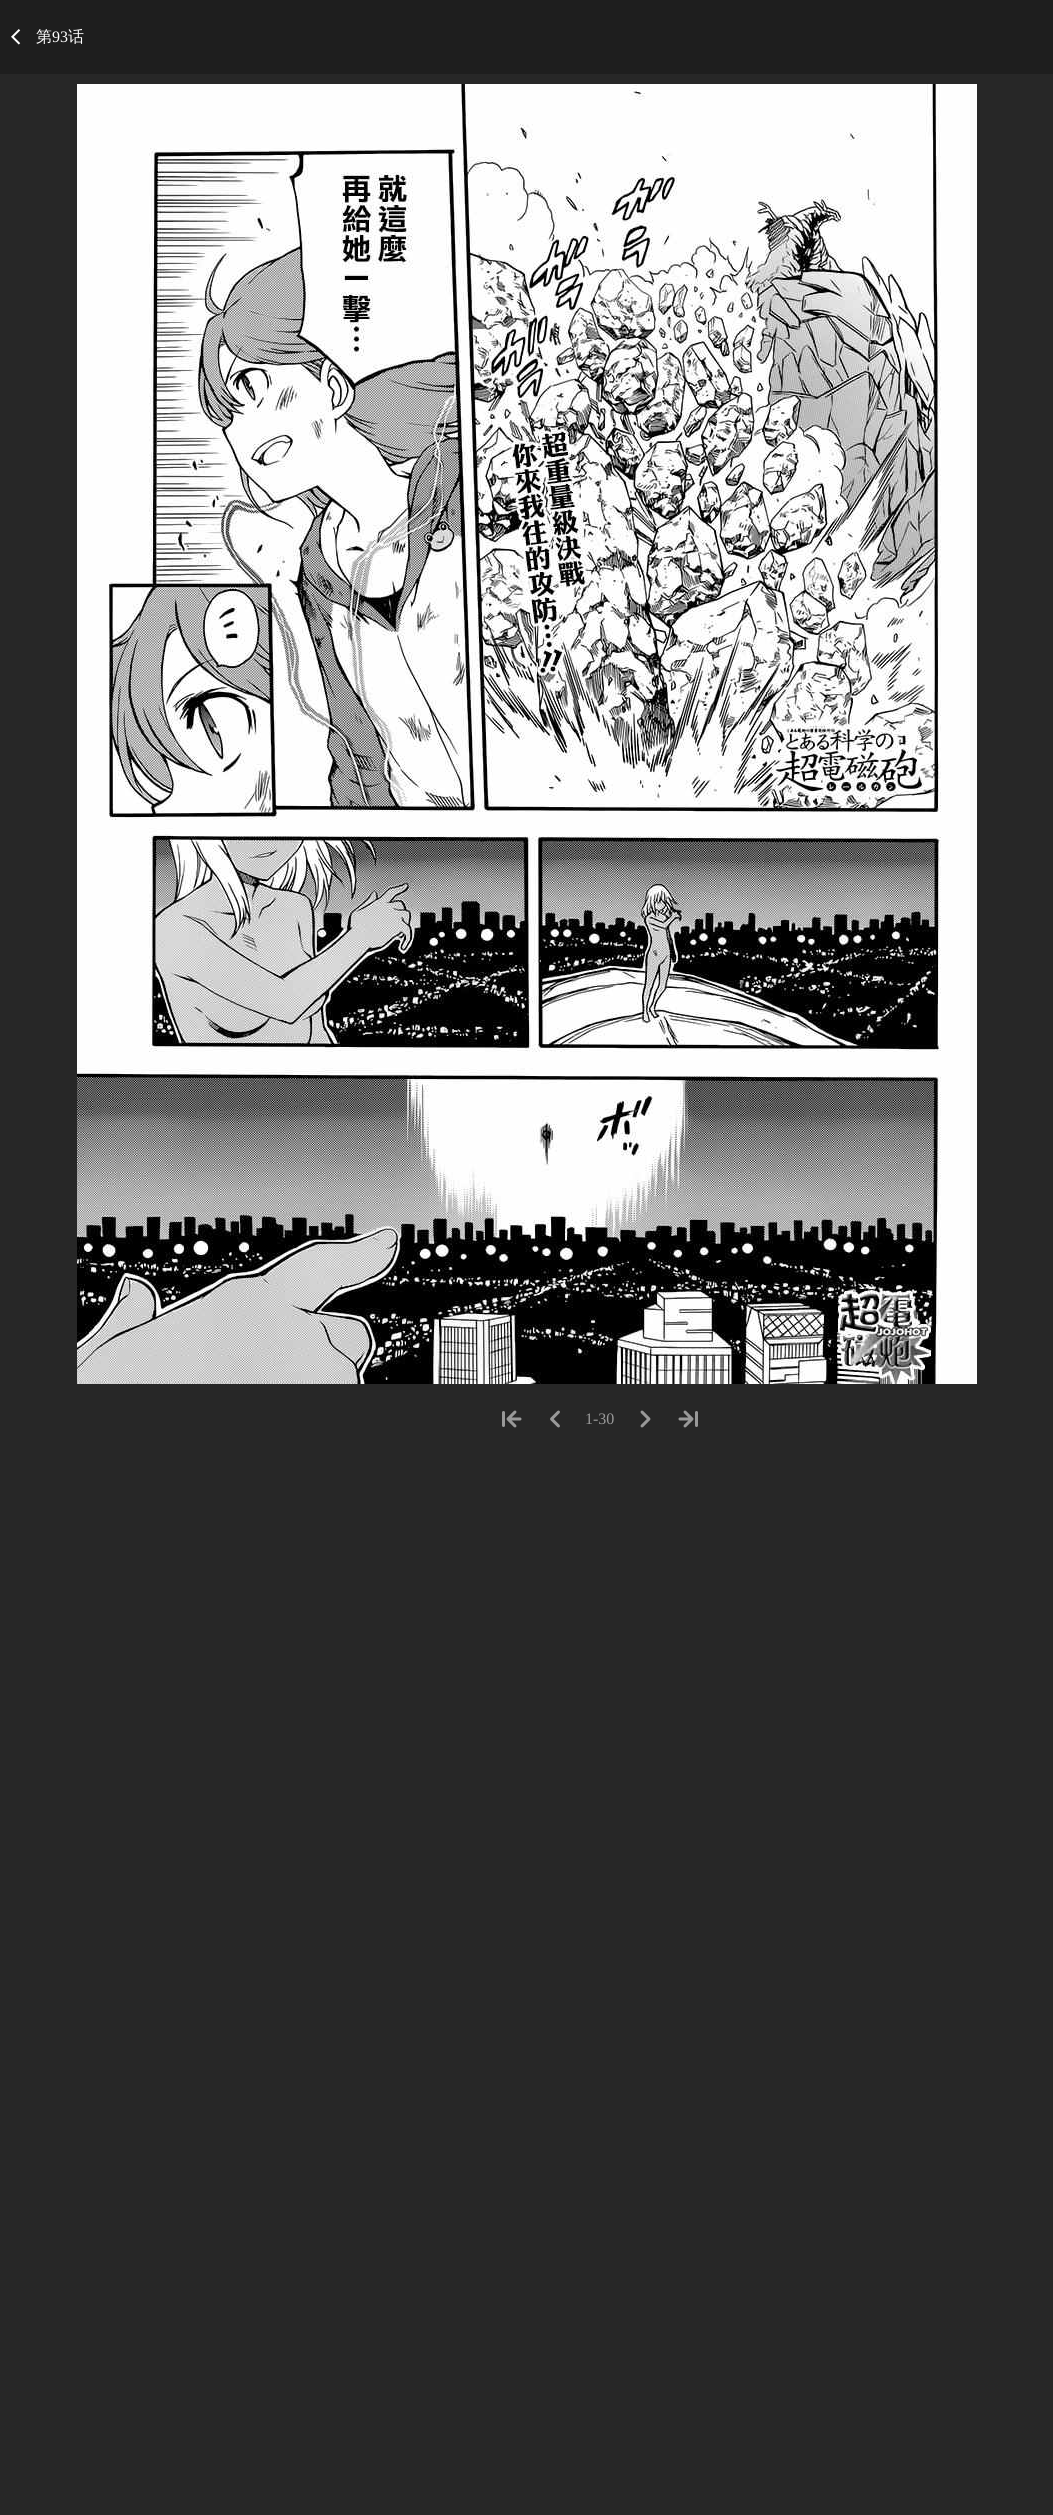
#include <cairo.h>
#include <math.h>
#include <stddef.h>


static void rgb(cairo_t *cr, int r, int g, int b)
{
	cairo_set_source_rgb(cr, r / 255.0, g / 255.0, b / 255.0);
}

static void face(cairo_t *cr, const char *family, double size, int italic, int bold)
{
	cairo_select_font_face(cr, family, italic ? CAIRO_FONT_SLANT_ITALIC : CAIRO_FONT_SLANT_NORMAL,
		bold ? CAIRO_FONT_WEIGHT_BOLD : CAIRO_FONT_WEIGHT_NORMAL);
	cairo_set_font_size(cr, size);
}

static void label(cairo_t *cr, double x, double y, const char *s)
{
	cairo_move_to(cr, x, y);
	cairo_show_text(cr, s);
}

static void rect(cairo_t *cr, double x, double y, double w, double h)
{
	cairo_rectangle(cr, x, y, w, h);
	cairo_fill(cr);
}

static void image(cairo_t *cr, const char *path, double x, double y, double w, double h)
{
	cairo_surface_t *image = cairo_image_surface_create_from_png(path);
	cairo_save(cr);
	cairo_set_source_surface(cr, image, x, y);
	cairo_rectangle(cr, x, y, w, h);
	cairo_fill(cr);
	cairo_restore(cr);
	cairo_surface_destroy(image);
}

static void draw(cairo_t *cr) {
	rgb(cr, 39, 39, 39);
	cairo_paint(cr);
	rgb(cr, 30, 30, 30);
	rect(cr, 0, 0, 1053, 74);
	image(cr, "image0.png", 11, 29, 10, 16);
	face(cr, "WenQuanYi Zen Hei Medium", 16, 0, 0);
	rgb(cr, 255, 255, 255);
	label(cr, 36, 42, "第");
	face(cr, "Liberation Serif", 16, 0, 0);
	label(cr, 52, 42, "93");
	face(cr, "WenQuanYi Zen Hei Medium", 16, 0, 0);
	label(cr, 68, 42, "话");
	image(cr, "image1.png", 77, 84, 900, 1300);
	image(cr, "image2.png", 502, 1410, 20, 18);
	image(cr, "image3.png", 550, 1410, 10, 18);
	face(cr, "Liberation Serif", 16, 0, 0);
	rgb(cr, 153, 153, 153);
	label(cr, 585, 1424, "1-30");
	image(cr, "image4.png", 640, 1410, 11, 18);
	image(cr, "image5.png", 678, 1410, 20, 18);
}

int main(void) {
	cairo_surface_t *surface = cairo_image_surface_create(CAIRO_FORMAT_RGB24, 1053, 2515);
	cairo_t *cr = cairo_create(surface);
	cairo_font_options_t *options = cairo_font_options_create();
	cairo_font_options_set_hint_metrics(options, CAIRO_HINT_METRICS_OFF);
	cairo_font_options_set_hint_style(options, CAIRO_HINT_STYLE_NONE);
	cairo_set_font_options(cr, options);
	cairo_set_miter_limit(cr, 4);
	draw(cr);
	cairo_surface_write_to_png(surface, "render.png");
	cairo_font_options_destroy(options);
	cairo_destroy(cr);
	cairo_surface_destroy(surface);
	return 0;
}
